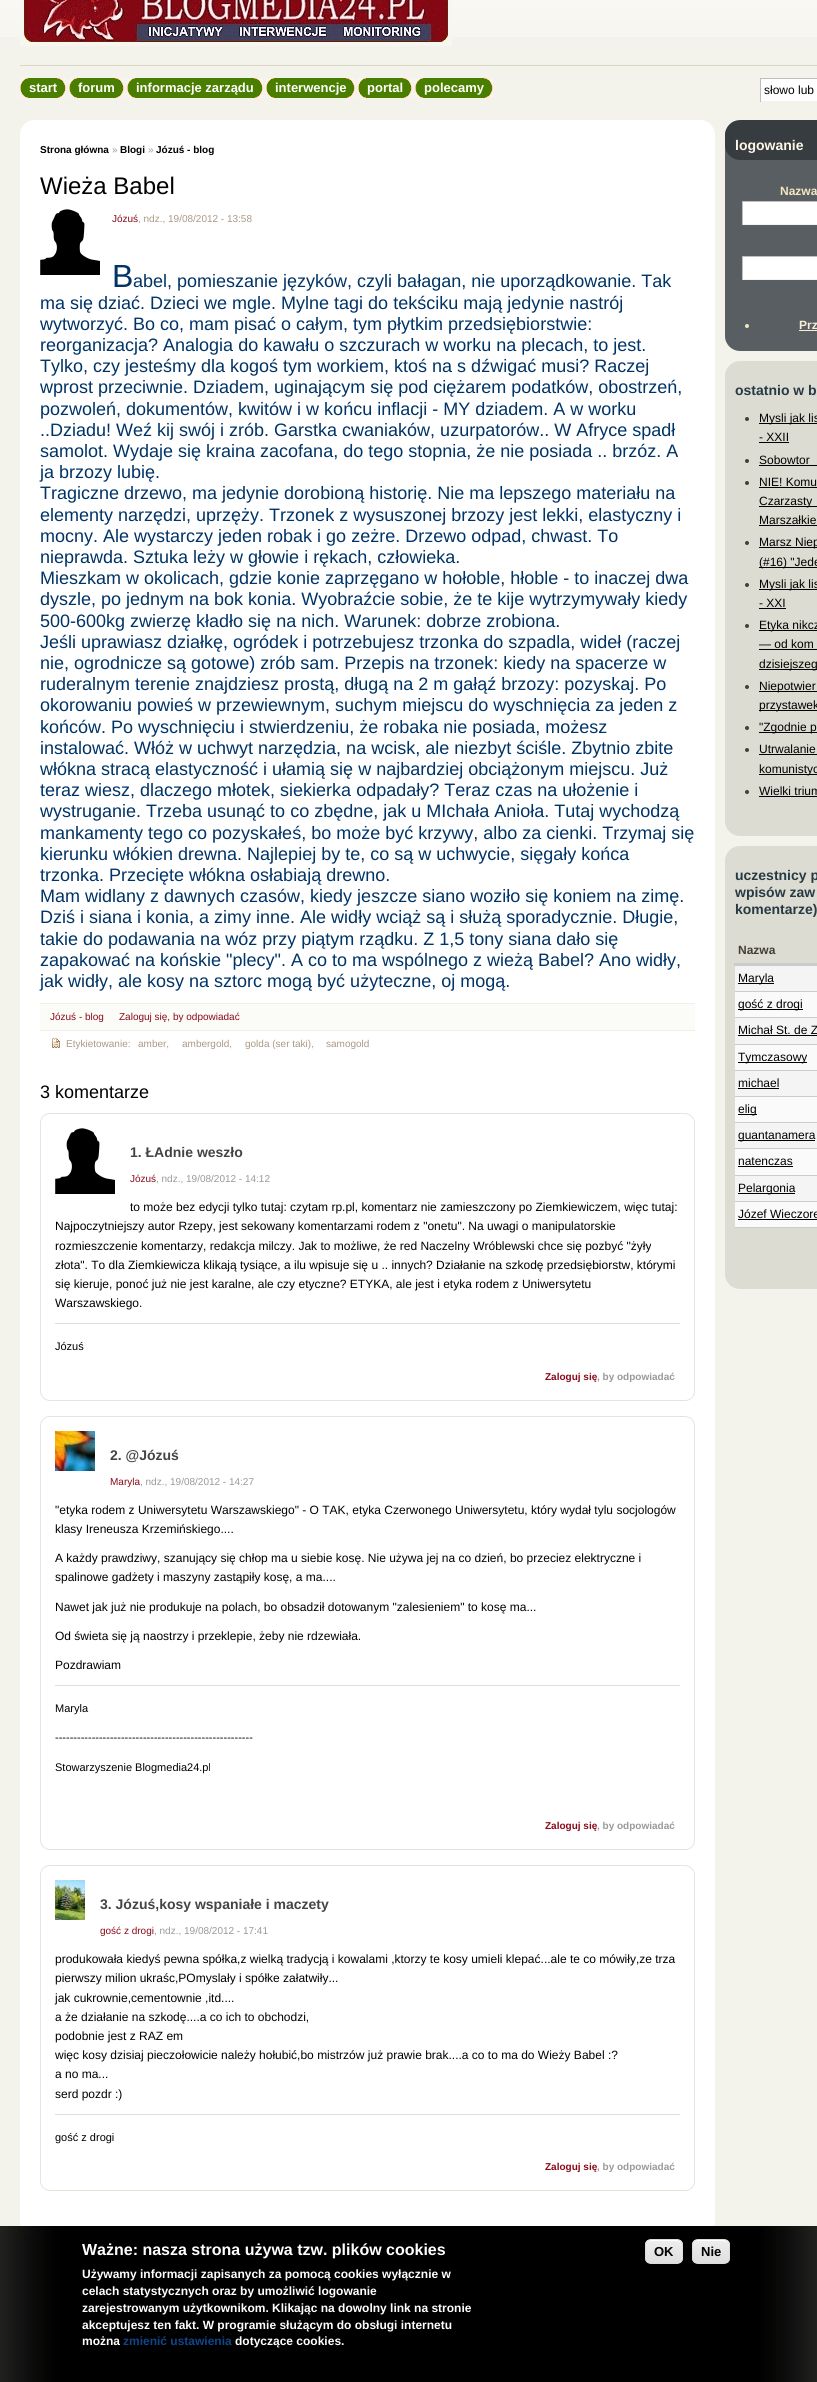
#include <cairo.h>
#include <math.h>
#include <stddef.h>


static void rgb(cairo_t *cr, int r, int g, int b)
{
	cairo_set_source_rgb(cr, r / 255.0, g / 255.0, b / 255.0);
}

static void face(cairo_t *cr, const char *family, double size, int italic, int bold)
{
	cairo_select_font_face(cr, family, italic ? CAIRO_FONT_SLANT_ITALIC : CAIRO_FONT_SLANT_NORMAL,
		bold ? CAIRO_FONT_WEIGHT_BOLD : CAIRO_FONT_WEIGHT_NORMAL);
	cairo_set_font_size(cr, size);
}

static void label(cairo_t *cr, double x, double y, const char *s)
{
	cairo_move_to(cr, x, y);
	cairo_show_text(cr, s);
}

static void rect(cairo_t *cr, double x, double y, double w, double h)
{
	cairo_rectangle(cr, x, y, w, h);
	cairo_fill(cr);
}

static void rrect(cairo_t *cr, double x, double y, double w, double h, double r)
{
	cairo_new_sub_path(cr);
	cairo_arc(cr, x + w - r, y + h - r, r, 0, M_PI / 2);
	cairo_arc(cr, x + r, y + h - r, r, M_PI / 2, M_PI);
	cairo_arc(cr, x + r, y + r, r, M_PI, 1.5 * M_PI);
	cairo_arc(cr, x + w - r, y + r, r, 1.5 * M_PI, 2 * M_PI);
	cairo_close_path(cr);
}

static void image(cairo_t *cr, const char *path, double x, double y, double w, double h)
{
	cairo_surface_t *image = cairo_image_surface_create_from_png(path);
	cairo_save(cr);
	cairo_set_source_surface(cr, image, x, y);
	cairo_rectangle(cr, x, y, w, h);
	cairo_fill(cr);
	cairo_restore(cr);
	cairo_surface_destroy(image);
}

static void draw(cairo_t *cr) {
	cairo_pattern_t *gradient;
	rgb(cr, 244, 243, 235);
	cairo_paint(cr);
	image(cr, "image0.png", 0, 0, 817, 37);
	rgb(cr, 217, 215, 195);
	rect(cr, 20, 65, 797, 1);
	image(cr, "image1.png", 20, 0, 432, 46);
	image(cr, "image2.png", 20, 78, 37, 20);
	image(cr, "image3.png", 57, 78, 9, 20);
	face(cr, "Liberation Sans", 13, 0, 1);
	rgb(cr, 255, 255, 255);
	label(cr, 29, 92, "start");
	image(cr, "image4.png", 69, 78, 46, 20);
	image(cr, "image3.png", 115, 78, 9, 20);
	label(cr, 78, 92, "forum");
	image(cr, "image5.png", 127, 78, 127, 20);
	image(cr, "image3.png", 254, 78, 9, 20);
	label(cr, 136, 92, "informacje zarządu");
	image(cr, "image6.png", 266, 78, 80, 20);
	image(cr, "image3.png", 346, 78, 9, 20);
	label(cr, 275, 92, "interwencje");
	image(cr, "image7.png", 358, 78, 45, 20);
	image(cr, "image3.png", 403, 78, 9, 20);
	label(cr, 367, 92, "portal");
	image(cr, "image8.png", 415, 78, 69, 20);
	image(cr, "image3.png", 484, 78, 9, 20);
	label(cr, 424, 92, "polecamy");
	rect(cr, 761, 79, 56, 22);
	rgb(cr, 190, 190, 190);
	rect(cr, 760, 78, 57, 1);
	rgb(cr, 243, 243, 243);
	rect(cr, 760, 101, 57, 1);
	rgb(cr, 190, 190, 190);
	rect(cr, 760, 78, 1, 24);
	face(cr, "Liberation Sans", 12, 0, 0);
	rgb(cr, 0, 0, 0);
	label(cr, 764, 94, "słowo lub");
	rgb(cr, 255, 255, 255);
	rect(cr, 20, 120, 695, 2116);
	image(cr, "image9.png", 20, 120, 12, 12);
	image(cr, "image10.png", 703, 120, 12, 13);
	image(cr, "image11.png", 703, 2223, 12, 3);
	image(cr, "image12.png", 20, 2224, 12, 12);
	face(cr, "Liberation Sans", 10, 0, 1);
	rgb(cr, 0, 0, 0);
	label(cr, 40, 153, "Strona główna");
	face(cr, "Liberation Sans", 10, 0, 0);
	rgb(cr, 153, 153, 153);
	label(cr, 112, 153, "»");
	face(cr, "Liberation Sans", 10, 0, 1);
	rgb(cr, 0, 0, 0);
	label(cr, 120, 153, "Blogi");
	face(cr, "Liberation Sans", 10, 0, 0);
	rgb(cr, 153, 153, 153);
	label(cr, 148, 153, "»");
	face(cr, "Liberation Sans", 10, 0, 1);
	rgb(cr, 0, 0, 0);
	label(cr, 156, 153, "Józuś - blog");
	face(cr, "Liberation Sans", 24, 0, 0);
	label(cr, 40, 194, "Wieża Babel");
	image(cr, "image13.png", 40, 209, 60, 66);
	face(cr, "Liberation Sans", 10, 0, 0);
	rgb(cr, 138, 9, 23);
	label(cr, 112, 222, "Józuś");
	rgb(cr, 171, 152, 133);
	label(cr, 138, 222, ", ndz., 19/08/2012 - 13:58");
	face(cr, "Liberation Sans", 32, 0, 0);
	rgb(cr, 0, 51, 102);
	label(cr, 112, 287, "B");
	face(cr, "Liberation Sans", 18, 0, 0);
	label(cr, 133, 287, "abel, pomieszanie języków, czyli bałagan, nie uporządkowanie. Tak");
	label(cr, 40, 309, "ma się dziać. Dzieci we mgle. Mylne tagi do tekściku mają jedynie nastrój");
	label(cr, 40, 330, "wytworzyć. Bo co, mam pisać o całym, tym płytkim przedsiębiorstwie:");
	label(cr, 40, 351, "reorganizacja? Analogia do kawału o szczurach w worku na plecach, to jest.");
	label(cr, 40, 372, "Tylko, czy jesteśmy dla kogoś tym workiem, ktoś na s dźwigać musi? Raczej");
	label(cr, 40, 393, "wprost przeciwnie. Dziadem, uginającym się pod ciężarem podatków, obostrzeń,");
	label(cr, 40, 415, "pozwoleń, dokumentów, kwitów i w końcu inflacji - MY dziadem. A w worku");
	label(cr, 40, 436, "..Dziadu! Weź kij swój i zrób. Garstka cwaniaków, uzurpatorów.. W Afryce spadł");
	label(cr, 40, 457, "samolot. Wydaje się kraina zacofana, do tego stopnia, że nie posiada .. brzóz. A");
	label(cr, 40, 478, "ja brzozy lubię.");
	label(cr, 40, 499, "Tragiczne drzewo, ma jedynie dorobioną historię. Nie ma lepszego materiału na");
	label(cr, 40, 521, "elementy narzędzi, uprzęży. Trzonek z wysuszonej brzozy jest lekki, elastyczny i");
	label(cr, 40, 542, "mocny. Ale wystarczy jeden robak i go zeżre. Drzewo odpad, chwast. To");
	label(cr, 40, 563, "nieprawda. Sztuka leży w głowie i rękach, człowieka.");
	label(cr, 40, 584, "Mieszkam w okolicach, gdzie konie zaprzęgano w hołoble, hłoble - to inaczej dwa");
	label(cr, 40, 605, "dyszle, po jednym na bok konia. Wyobraźcie sobie, że te kije wytrzymywały kiedy");
	label(cr, 40, 627, "500-600kg zwierzę kładło się na nich. Warunek: dobrze zrobiona.");
	label(cr, 40, 648, "Jeśli uprawiasz działkę, ogródek i potrzebujesz trzonka do szpadla, wideł (raczej");
	label(cr, 40, 669, "nie, ogrodnicze są gotowe) zrób sam. Przepis na trzonek: kiedy na spacerze w");
	label(cr, 40, 690, "ruderalnym terenie znajdziesz prostą, długą na 2 m gałąź brzozy: pozyskaj. Po");
	label(cr, 40, 711, "okorowaniu powieś w przewiewnym, suchym miejscu do wyschnięcia za jeden z");
	label(cr, 40, 733, "końców. Po wyschnięciu i stwierdzeniu, że robaka nie posiada, możesz");
	label(cr, 40, 754, "instalować. Włóż w uchwyt narzędzia, na wcisk, ale niezbyt ściśle. Zbytnio zbite");
	label(cr, 40, 775, "włókna stracą elastyczność i ułamią się w najbardziej obciążonym miejscu. Już");
	label(cr, 40, 796, "teraz wiesz, dlaczego młotek, siekierka odpadały? Teraz czas na ułożenie i");
	label(cr, 40, 817, "wystruganie. Trzeba usunąć to co zbędne, jak u MIchała Anioła. Tutaj wychodzą");
	label(cr, 40, 839, "mankamenty tego co pozyskałeś, bo może być krzywy, albo za cienki. Trzymaj się");
	label(cr, 40, 860, "kierunku włókien drewna. Najlepiej by te, co są w uchwycie, sięgały końca");
	label(cr, 40, 881, "trzonka. Przecięte włókna osłabiają drewno.");
	label(cr, 40, 902, "Mam widlany z dawnych czasów, kiedy jeszcze siano woziło się koniem na zimę.");
	label(cr, 40, 923, "Dziś i siana i konia, a zimy inne. Ale widły wciąż są i służą sporadycznie. Długie,");
	label(cr, 40, 945, "takie do podawania na wóz przy piątym rządku. Z 1,5 tony siana dało się");
	label(cr, 40, 966, "zapakować na końskie \"plecy\". A co to ma wspólnego z wieżą Babel? Ano widły,");
	label(cr, 40, 987, "jak widły, ale kosy na sztorc mogą być użyteczne, oj mogą.");
	rgb(cr, 251, 251, 248);
	rect(cr, 40, 1004, 655, 26);
	rgb(cr, 240, 239, 227);
	rect(cr, 40, 1003, 655, 1);
	rect(cr, 40, 1030, 655, 1);
	face(cr, "Liberation Sans", 10, 0, 0);
	rgb(cr, 138, 9, 23);
	label(cr, 50, 1020, "Józuś - blog");
	label(cr, 119, 1020, "Zaloguj się, by odpowiadać");
	image(cr, "image14.png", 52, 1038, 8, 10);
	rgb(cr, 171, 152, 133);
	label(cr, 66, 1047, "Etykietowanie:");
	label(cr, 138, 1047, "amber,");
	label(cr, 182, 1047, "ambergold,");
	label(cr, 245, 1047, "golda (ser taki),");
	label(cr, 326, 1047, "samogold");
	face(cr, "Liberation Sans", 18, 0, 0);
	rgb(cr, 0, 0, 0);
	label(cr, 40, 1098, "3 komentarze");
	rgb(cr, 230, 227, 219);
	rect(cr, 49, 1113, 636, 1);
	rgb(cr, 231, 229, 221);
	rect(cr, 694, 1114, 1, 287);
	rgb(cr, 230, 227, 219);
	rect(cr, 50, 1400, 644, 1);
	rgb(cr, 231, 229, 221);
	rect(cr, 40, 1114, 1, 286);
	image(cr, "image15.png", 40, 1113, 9, 8);
	image(cr, "image16.png", 685, 1113, 10, 9);
	image(cr, "image17.png", 686, 1393, 9, 8);
	image(cr, "image18.png", 40, 1392, 10, 9);
	image(cr, "image13.png", 55, 1128, 60, 66);
	face(cr, "Liberation Sans", 14, 0, 1);
	rgb(cr, 68, 68, 68);
	label(cr, 130, 1157, "1. ŁAdnie weszło");
	face(cr, "Liberation Sans", 10, 0, 0);
	rgb(cr, 138, 9, 23);
	label(cr, 130, 1182, "Józuś");
	rgb(cr, 153, 153, 153);
	label(cr, 156, 1182, ", ndz., 19/08/2012 - 14:12");
	face(cr, "Liberation Sans", 12, 0, 0);
	rgb(cr, 0, 0, 0);
	label(cr, 130, 1211, "to może bez edycji tylko tutaj: czytam rp.pl, komentarz nie zamieszczony po Ziemkiewiczem, więc tutaj:");
	label(cr, 55, 1230, "Najpoczytniejszy autor Rzepy, jest sekowany komentarzami rodem z \"onetu\". Na uwagi o manipulatorskie");
	label(cr, 55, 1250, "rozmieszczenie komentarzy, redakcja milczy. Jak to możliwe, że red Naczelny Wróblewski chce się pozbyć \"żyły");
	label(cr, 55, 1269, "złota\". To dla Ziemkiewicza klikają tysiące, a ilu wpisuje się u .. innych? Działanie na szkodę przedsiębiorstw, którymi");
	label(cr, 55, 1288, "się kieruje, ponoć już nie jest karalne, ale czy etyczne? ETYKA, ale jest i etyka rodem z Uniwersytetu");
	label(cr, 55, 1307, "Warszawskiego.");
	rgb(cr, 221, 221, 221);
	rect(cr, 55, 1323, 625, 1);
	face(cr, "Liberation Sans", 11, 0, 0);
	rgb(cr, 0, 0, 0);
	label(cr, 55, 1350, "Józuś");
	face(cr, "Liberation Sans", 10, 0, 1);
	rgb(cr, 138, 9, 23);
	label(cr, 545, 1380, "Zaloguj się");
	rgb(cr, 153, 153, 153);
	label(cr, 597, 1380, ", by odpowiadać");
	rgb(cr, 230, 227, 219);
	rect(cr, 49, 1416, 636, 1);
	rgb(cr, 231, 229, 221);
	rect(cr, 694, 1417, 1, 433);
	rgb(cr, 230, 227, 219);
	rect(cr, 50, 1849, 644, 1);
	rgb(cr, 231, 229, 221);
	rect(cr, 40, 1417, 1, 432);
	image(cr, "image15.png", 40, 1416, 9, 8);
	image(cr, "image16.png", 685, 1416, 10, 9);
	image(cr, "image17.png", 686, 1842, 9, 8);
	image(cr, "image18.png", 40, 1841, 10, 9);
	image(cr, "image19.png", 55, 1431, 40, 40);
	face(cr, "Liberation Sans", 14, 0, 1);
	rgb(cr, 68, 68, 68);
	label(cr, 110, 1460, "2. @Józuś");
	face(cr, "Liberation Sans", 10, 0, 0);
	rgb(cr, 138, 9, 23);
	label(cr, 110, 1485, "Maryla");
	rgb(cr, 153, 153, 153);
	label(cr, 140, 1485, ", ndz., 19/08/2012 - 14:27");
	face(cr, "Liberation Sans", 12, 0, 0);
	rgb(cr, 0, 0, 0);
	label(cr, 55, 1514, "\"etyka rodem z Uniwersytetu Warszawskiego\" - O TAK, etyka Czerwonego Uniwersytetu, który wydał tylu socjologów");
	label(cr, 55, 1533, "klasy Ireneusza Krzemińskiego....");
	label(cr, 55, 1562, "A każdy prawdziwy, szanujący się chłop ma u siebie kosę. Nie używa jej na co dzień, bo przeciez elektryczne i");
	label(cr, 55, 1581, "spalinowe gadżety i maszyny zastąpiły kosę, a ma....");
	label(cr, 55, 1611, "Nawet jak już nie produkuje na polach, bo obsadził dotowanym \"zalesieniem\" to kosę ma...");
	label(cr, 55, 1640, "Od świeta się ją naostrzy i przeklepie, żeby nie rdzewiała.");
	label(cr, 55, 1669, "Pozdrawiam");
	rgb(cr, 221, 221, 221);
	rect(cr, 55, 1685, 625, 1);
	face(cr, "Liberation Sans", 11, 0, 0);
	rgb(cr, 0, 0, 0);
	label(cr, 55, 1712, "Maryla");
	label(cr, 55, 1741, "------------------------------------------------------");
	label(cr, 55, 1771, "Stowarzyszenie Blogmedia24.pl");
	face(cr, "Liberation Sans", 10, 0, 1);
	rgb(cr, 138, 9, 23);
	label(cr, 545, 1829, "Zaloguj się");
	rgb(cr, 153, 153, 153);
	label(cr, 597, 1829, ", by odpowiadać");
	rgb(cr, 230, 227, 219);
	rect(cr, 49, 1865, 636, 1);
	rgb(cr, 231, 229, 221);
	rect(cr, 694, 1866, 1, 325);
	rgb(cr, 230, 227, 219);
	rect(cr, 50, 2190, 644, 1);
	rgb(cr, 231, 229, 221);
	rect(cr, 40, 1866, 1, 324);
	image(cr, "image15.png", 40, 1865, 9, 8);
	image(cr, "image16.png", 685, 1865, 10, 9);
	image(cr, "image17.png", 686, 2183, 9, 8);
	image(cr, "image18.png", 40, 2182, 10, 9);
	image(cr, "image20.png", 55, 1880, 30, 40);
	face(cr, "Liberation Sans", 14, 0, 1);
	rgb(cr, 68, 68, 68);
	label(cr, 100, 1909, "3. Józuś,kosy wspaniałe i maczety");
	face(cr, "Liberation Sans", 10, 0, 0);
	rgb(cr, 138, 9, 23);
	label(cr, 100, 1934, "gość z drogi");
	rgb(cr, 153, 153, 153);
	label(cr, 154, 1934, ", ndz., 19/08/2012 - 17:41");
	face(cr, "Liberation Sans", 12, 0, 0);
	rgb(cr, 0, 0, 0);
	label(cr, 55, 1963, "produkowała kiedyś pewna spółka,z wielką tradycją i kowalami ,ktorzy te kosy umieli klepać...ale te co mówiły,ze trza");
	label(cr, 55, 1982, "pierwszy milion ukraśc,POmyslały i spółke załatwiły...");
	label(cr, 55, 2002, "jak cukrownie,cementownie ,itd....");
	label(cr, 55, 2021, "a że działanie na szkodę....a co ich to obchodzi,");
	label(cr, 55, 2040, "podobnie jest z RAZ em");
	label(cr, 55, 2059, "więc kosy dzisiaj pieczołowicie należy hołubić,bo mistrzów już prawie brak....a co to ma do Wieży Babel :?");
	label(cr, 55, 2078, "a no ma...");
	label(cr, 55, 2098, "serd pozdr :)");
	rgb(cr, 221, 221, 221);
	rect(cr, 55, 2114, 625, 1);
	face(cr, "Liberation Sans", 11, 0, 0);
	rgb(cr, 0, 0, 0);
	label(cr, 55, 2141, "gość z drogi");
	face(cr, "Liberation Sans", 10, 0, 1);
	rgb(cr, 138, 9, 23);
	label(cr, 545, 2170, "Zaloguj się");
	rgb(cr, 153, 153, 153);
	label(cr, 597, 2170, ", by odpowiadać");
	rgb(cr, 88, 94, 98);
	rect(cr, 725, 160, 92, 191);
	image(cr, "image21.png", 725, 337, 14, 14);
	rgb(cr, 54, 60, 63);
	rect(cr, 725, 120, 92, 40);
	image(cr, "image22.png", 725, 120, 15, 14);
	image(cr, "image23.png", 725, 147, 14, 13);
	face(cr, "Liberation Sans", 14, 0, 1);
	rgb(cr, 255, 247, 230);
	label(cr, 735, 150, "logowanie");
	face(cr, "Liberation Sans", 12, 0, 1);
	rgb(cr, 245, 229, 194);
	label(cr, 780, 195, "Nazwa");
	rgb(cr, 255, 255, 255);
	rect(cr, 743, 202, 74, 22);
	rgb(cr, 190, 190, 190);
	rect(cr, 742, 201, 75, 1);
	rgb(cr, 243, 243, 243);
	rect(cr, 742, 224, 75, 1);
	rgb(cr, 190, 190, 190);
	rect(cr, 742, 201, 1, 24);
	rgb(cr, 255, 255, 255);
	rect(cr, 743, 257, 74, 22);
	rgb(cr, 190, 190, 190);
	rect(cr, 742, 256, 75, 1);
	rgb(cr, 243, 243, 243);
	rect(cr, 742, 279, 75, 1);
	rgb(cr, 190, 190, 190);
	rect(cr, 742, 256, 1, 24);
	rgb(cr, 245, 229, 194);
	cairo_new_path(cr);
	cairo_arc(cr, 747, 326, 2, 0, 2 * M_PI);
	cairo_fill(cr);
	rgb(cr, 248, 238, 216);
	label(cr, 799, 329, "Prz");
	rect(cr, 799, 330, 18, 1);
	rgb(cr, 221, 220, 210);
	rect(cr, 725, 361, 92, 475);
	image(cr, "image24.png", 725, 361, 14, 13);
	image(cr, "image25.png", 725, 823, 14, 13);
	face(cr, "Liberation Sans", 14, 0, 1);
	rgb(cr, 39, 58, 68);
	label(cr, 735, 395, "ostatnio w b");
	rgb(cr, 68, 62, 54);
	cairo_new_path(cr);
	cairo_arc(cr, 747, 419, 2, 0, 2 * M_PI);
	cairo_fill(cr);
	rgb(cr, 0, 0, 0);
	rect(cr, 759, 423, 58, 1);
	face(cr, "Liberation Sans", 12, 0, 0);
	label(cr, 759, 422, "Mysli jak lis");
	label(cr, 759, 441, "- XXII");
	rect(cr, 759, 442, 30, 1);
	rgb(cr, 68, 62, 54);
	cairo_new_path(cr);
	cairo_arc(cr, 747, 461, 2, 0, 2 * M_PI);
	cairo_fill(cr);
	rgb(cr, 0, 0, 0);
	label(cr, 759, 464, "Sobowtor");
	rect(cr, 759, 465, 58, 1);
	rgb(cr, 68, 62, 54);
	cairo_new_path(cr);
	cairo_arc(cr, 747, 483, 2, 0, 2 * M_PI);
	cairo_fill(cr);
	rgb(cr, 0, 0, 0);
	label(cr, 759, 486, "NIE! Komu");
	rect(cr, 759, 487, 58, 1);
	rect(cr, 759, 506, 58, 1);
	label(cr, 759, 505, "Czarzasty");
	label(cr, 759, 524, "Marszałkie");
	rect(cr, 759, 525, 58, 1);
	rgb(cr, 68, 62, 54);
	cairo_new_path(cr);
	cairo_arc(cr, 747, 543, 2, 0, 2 * M_PI);
	cairo_fill(cr);
	rgb(cr, 0, 0, 0);
	rect(cr, 759, 547, 58, 1);
	label(cr, 759, 546, "Marsz Niep");
	rect(cr, 759, 567, 58, 1);
	label(cr, 759, 566, "(#16) \"Jede");
	rgb(cr, 68, 62, 54);
	cairo_new_path(cr);
	cairo_arc(cr, 747, 585, 2, 0, 2 * M_PI);
	cairo_fill(cr);
	rgb(cr, 0, 0, 0);
	rect(cr, 759, 589, 58, 1);
	label(cr, 759, 588, "Mysli jak lis");
	label(cr, 759, 607, "- XXI");
	rect(cr, 759, 608, 27, 1);
	rgb(cr, 68, 62, 54);
	cairo_new_path(cr);
	cairo_arc(cr, 747, 626, 2, 0, 2 * M_PI);
	cairo_fill(cr);
	rgb(cr, 0, 0, 0);
	rect(cr, 759, 630, 58, 1);
	label(cr, 759, 629, "Etyka nikcz");
	label(cr, 759, 648, "— od kom");
	rect(cr, 759, 649, 58, 1);
	rect(cr, 759, 669, 58, 1);
	label(cr, 759, 668, "dzisiejszeg");
	rgb(cr, 68, 62, 54);
	cairo_new_path(cr);
	cairo_arc(cr, 747, 687, 2, 0, 2 * M_PI);
	cairo_fill(cr);
	rgb(cr, 0, 0, 0);
	rect(cr, 759, 691, 58, 1);
	label(cr, 759, 690, "Niepotwier");
	rect(cr, 759, 710, 58, 1);
	label(cr, 759, 709, "przystawek");
	rgb(cr, 68, 62, 54);
	cairo_new_path(cr);
	cairo_arc(cr, 747, 728, 2, 0, 2 * M_PI);
	cairo_fill(cr);
	rgb(cr, 0, 0, 0);
	rect(cr, 759, 732, 58, 1);
	label(cr, 759, 731, "\"Zgodnie p");
	rgb(cr, 68, 62, 54);
	cairo_new_path(cr);
	cairo_arc(cr, 747, 750, 2, 0, 2 * M_PI);
	cairo_fill(cr);
	rgb(cr, 0, 0, 0);
	label(cr, 759, 753, "Utrwalanie");
	rect(cr, 759, 754, 58, 1);
	rect(cr, 759, 774, 58, 1);
	label(cr, 759, 773, "komunistyc");
	rgb(cr, 68, 62, 54);
	cairo_new_path(cr);
	cairo_arc(cr, 747, 792, 2, 0, 2 * M_PI);
	cairo_fill(cr);
	rgb(cr, 0, 0, 0);
	label(cr, 759, 795, "Wielki trium");
	rect(cr, 759, 796, 58, 1);
	rgb(cr, 221, 220, 210);
	rect(cr, 725, 846, 92, 443);
	image(cr, "image24.png", 725, 846, 14, 13);
	image(cr, "image25.png", 725, 1276, 14, 13);
	face(cr, "Liberation Sans", 14, 0, 1);
	rgb(cr, 39, 58, 68);
	label(cr, 735, 880, "uczestnicy p");
	label(cr, 735, 897, "wpisów zaw");
	label(cr, 735, 914, "komentarze)");
	rgb(cr, 204, 204, 204);
	rect(cr, 734, 963, 83, 3);
	face(cr, "Liberation Sans", 12, 0, 1);
	rgb(cr, 68, 62, 54);
	label(cr, 738, 954, "Nazwa");
	rgb(cr, 244, 244, 244);
	rect(cr, 735, 966, 82, 25);
	rgb(cr, 204, 204, 204);
	rect(cr, 735, 991, 82, 1);
	rgb(cr, 0, 0, 0);
	rect(cr, 738, 983, 36, 1);
	face(cr, "Liberation Sans", 12, 0, 0);
	label(cr, 738, 982, "Maryla");
	rgb(cr, 250, 250, 250);
	rect(cr, 735, 992, 82, 25);
	rgb(cr, 204, 204, 204);
	rect(cr, 735, 1017, 82, 1);
	rgb(cr, 0, 0, 0);
	rect(cr, 738, 1009, 65, 1);
	label(cr, 738, 1008, "gość z drogi");
	rgb(cr, 244, 244, 244);
	rect(cr, 735, 1018, 82, 26);
	rgb(cr, 204, 204, 204);
	rect(cr, 735, 1044, 82, 1);
	rgb(cr, 0, 0, 0);
	label(cr, 738, 1034, "Michał St. de Z");
	rect(cr, 738, 1035, 79, 1);
	rgb(cr, 250, 250, 250);
	rect(cr, 735, 1045, 82, 25);
	rgb(cr, 204, 204, 204);
	rect(cr, 735, 1070, 82, 1);
	rgb(cr, 0, 0, 0);
	rect(cr, 738, 1062, 69, 1);
	label(cr, 738, 1061, "Tymczasowy");
	rgb(cr, 244, 244, 244);
	rect(cr, 735, 1071, 82, 25);
	rgb(cr, 204, 204, 204);
	rect(cr, 735, 1096, 82, 1);
	rgb(cr, 0, 0, 0);
	label(cr, 738, 1087, "michael");
	rect(cr, 738, 1088, 41, 1);
	rgb(cr, 250, 250, 250);
	rect(cr, 735, 1097, 82, 25);
	rgb(cr, 204, 204, 204);
	rect(cr, 735, 1122, 82, 1);
	rgb(cr, 0, 0, 0);
	rect(cr, 738, 1114, 19, 1);
	label(cr, 738, 1113, "elig");
	rgb(cr, 244, 244, 244);
	rect(cr, 735, 1123, 82, 25);
	rgb(cr, 204, 204, 204);
	rect(cr, 735, 1148, 82, 1);
	rgb(cr, 0, 0, 0);
	rect(cr, 738, 1140, 77, 1);
	label(cr, 738, 1139, "guantanamera");
	rgb(cr, 250, 250, 250);
	rect(cr, 735, 1149, 82, 26);
	rgb(cr, 204, 204, 204);
	rect(cr, 735, 1175, 82, 1);
	rgb(cr, 0, 0, 0);
	label(cr, 738, 1165, "natenczas");
	rect(cr, 738, 1166, 55, 1);
	rgb(cr, 244, 244, 244);
	rect(cr, 735, 1176, 82, 25);
	rgb(cr, 204, 204, 204);
	rect(cr, 735, 1201, 82, 1);
	rgb(cr, 0, 0, 0);
	rect(cr, 738, 1193, 57, 1);
	label(cr, 738, 1192, "Pelargonia");
	rgb(cr, 250, 250, 250);
	rect(cr, 735, 1202, 82, 25);
	rgb(cr, 204, 204, 204);
	rect(cr, 735, 1227, 82, 1);
	rgb(cr, 0, 0, 0);
	label(cr, 738, 1218, "Józef Wieczore");
	rect(cr, 738, 1219, 79, 1);
	image(cr, "image26.png", 0, 2226, 817, 156);
	face(cr, "Liberation Sans", 16, 0, 1);
	rgb(cr, 255, 255, 255);
	label(cr, 82, 2255, "Ważne: nasza strona używa tzw. plików cookies");
	face(cr, "Liberation Sans", 12, 0, 1);
	label(cr, 82, 2278, "Używamy informacji zapisanych za pomocą cookies wyłącznie w");
	label(cr, 82, 2295, "celach statystycznych oraz by umożliwić logowanie");
	label(cr, 82, 2312, "zarejestrowanym użytkownikom. Klikając na dowolny link na stronie");
	label(cr, 82, 2329, "akceptujesz ten fakt. W programie służącym do obsługi internetu");
	label(cr, 82, 2345, "można");
	rgb(cr, 17, 68, 136);
	label(cr, 123, 2345, "zmienić ustawienia");
	rgb(cr, 255, 255, 255);
	label(cr, 235, 2345, "dotyczące cookies.");
	cairo_save(cr);
	rrect(cr, 645, 2239, 38, 25, 6);
	cairo_clip(cr);
	gradient = cairo_pattern_create_linear(646, 2240, 646, 2263);
	cairo_pattern_add_color_stop_rgba(gradient, 0.05, 0.929, 0.929, 0.929, 1);
	cairo_pattern_add_color_stop_rgba(gradient, 1, 0.875, 0.875, 0.875, 1);
	cairo_set_source(cr, gradient);
	cairo_pattern_destroy(gradient);
	rect(cr, 645, 2240, 38, 23);
	cairo_restore(cr);
	cairo_set_fill_rule(cr, CAIRO_FILL_RULE_EVEN_ODD);
	cairo_new_path(cr);
	cairo_move_to(cr, 651, 2241);
	cairo_line_to(cr, 673, 2241);
	cairo_curve_to(cr, 680.5, 2241, 682, 2242, 682, 2246.5);
	cairo_curve_to(cr, 682, 2240, 678.5, 2240, 672.5, 2240);
	cairo_line_to(cr, 655.5, 2240);
	cairo_curve_to(cr, 648.5, 2240, 646, 2240, 646, 2247);
	cairo_curve_to(cr, 646, 2244, 647, 2241, 651, 2241);
	cairo_close_path(cr);
	cairo_move_to(cr, 682, 2258);
	cairo_line_to(cr, 682, 2259);
	cairo_close_path(cr);
	cairo_fill(cr);
	rrect(cr, 645.5, 2239.5, 37, 24, 5.5);
	rgb(cr, 220, 220, 220);
	cairo_set_line_width(cr, 1);
	cairo_stroke(cr);
	face(cr, "Liberation Sans", 13, 0, 1);
	rgb(cr, 0, 0, 0);
	label(cr, 654, 2256, "OK");
	cairo_save(cr);
	cairo_set_fill_rule(cr, CAIRO_FILL_RULE_WINDING);
	rrect(cr, 692, 2239, 38, 25, 6);
	cairo_clip(cr);
	gradient = cairo_pattern_create_linear(693, 2240, 693, 2263);
	cairo_pattern_add_color_stop_rgba(gradient, 0.05, 0.929, 0.929, 0.929, 1);
	cairo_pattern_add_color_stop_rgba(gradient, 1, 0.875, 0.875, 0.875, 1);
	cairo_set_source(cr, gradient);
	cairo_pattern_destroy(gradient);
	rect(cr, 692, 2240, 38, 23);
	cairo_restore(cr);
	rgb(cr, 255, 255, 255);
	cairo_new_path(cr);
	cairo_move_to(cr, 698, 2241);
	cairo_line_to(cr, 720, 2241);
	cairo_curve_to(cr, 727.5, 2241, 729, 2242, 729, 2246.5);
	cairo_curve_to(cr, 729, 2240, 725.5, 2240, 719.5, 2240);
	cairo_line_to(cr, 702.5, 2240);
	cairo_curve_to(cr, 695.5, 2240, 693, 2240, 693, 2247);
	cairo_curve_to(cr, 693, 2244, 694, 2241, 698, 2241);
	cairo_close_path(cr);
	cairo_move_to(cr, 729, 2258);
	cairo_line_to(cr, 729, 2259);
	cairo_close_path(cr);
	cairo_fill(cr);
	rrect(cr, 692.5, 2239.5, 37, 24, 5.5);
	rgb(cr, 220, 220, 220);
	cairo_stroke(cr);
	rgb(cr, 0, 0, 0);
	label(cr, 701, 2256, "Nie");
}

int main(void) {
	cairo_surface_t *surface = cairo_image_surface_create(CAIRO_FORMAT_RGB24, 817, 2382);
	cairo_t *cr = cairo_create(surface);
	cairo_font_options_t *options = cairo_font_options_create();
	cairo_font_options_set_hint_metrics(options, CAIRO_HINT_METRICS_OFF);
	cairo_font_options_set_hint_style(options, CAIRO_HINT_STYLE_NONE);
	cairo_set_font_options(cr, options);
	cairo_set_miter_limit(cr, 4);
	draw(cr);
	cairo_surface_write_to_png(surface, "render.png");
	cairo_font_options_destroy(options);
	cairo_destroy(cr);
	cairo_surface_destroy(surface);
	return 0;
}
